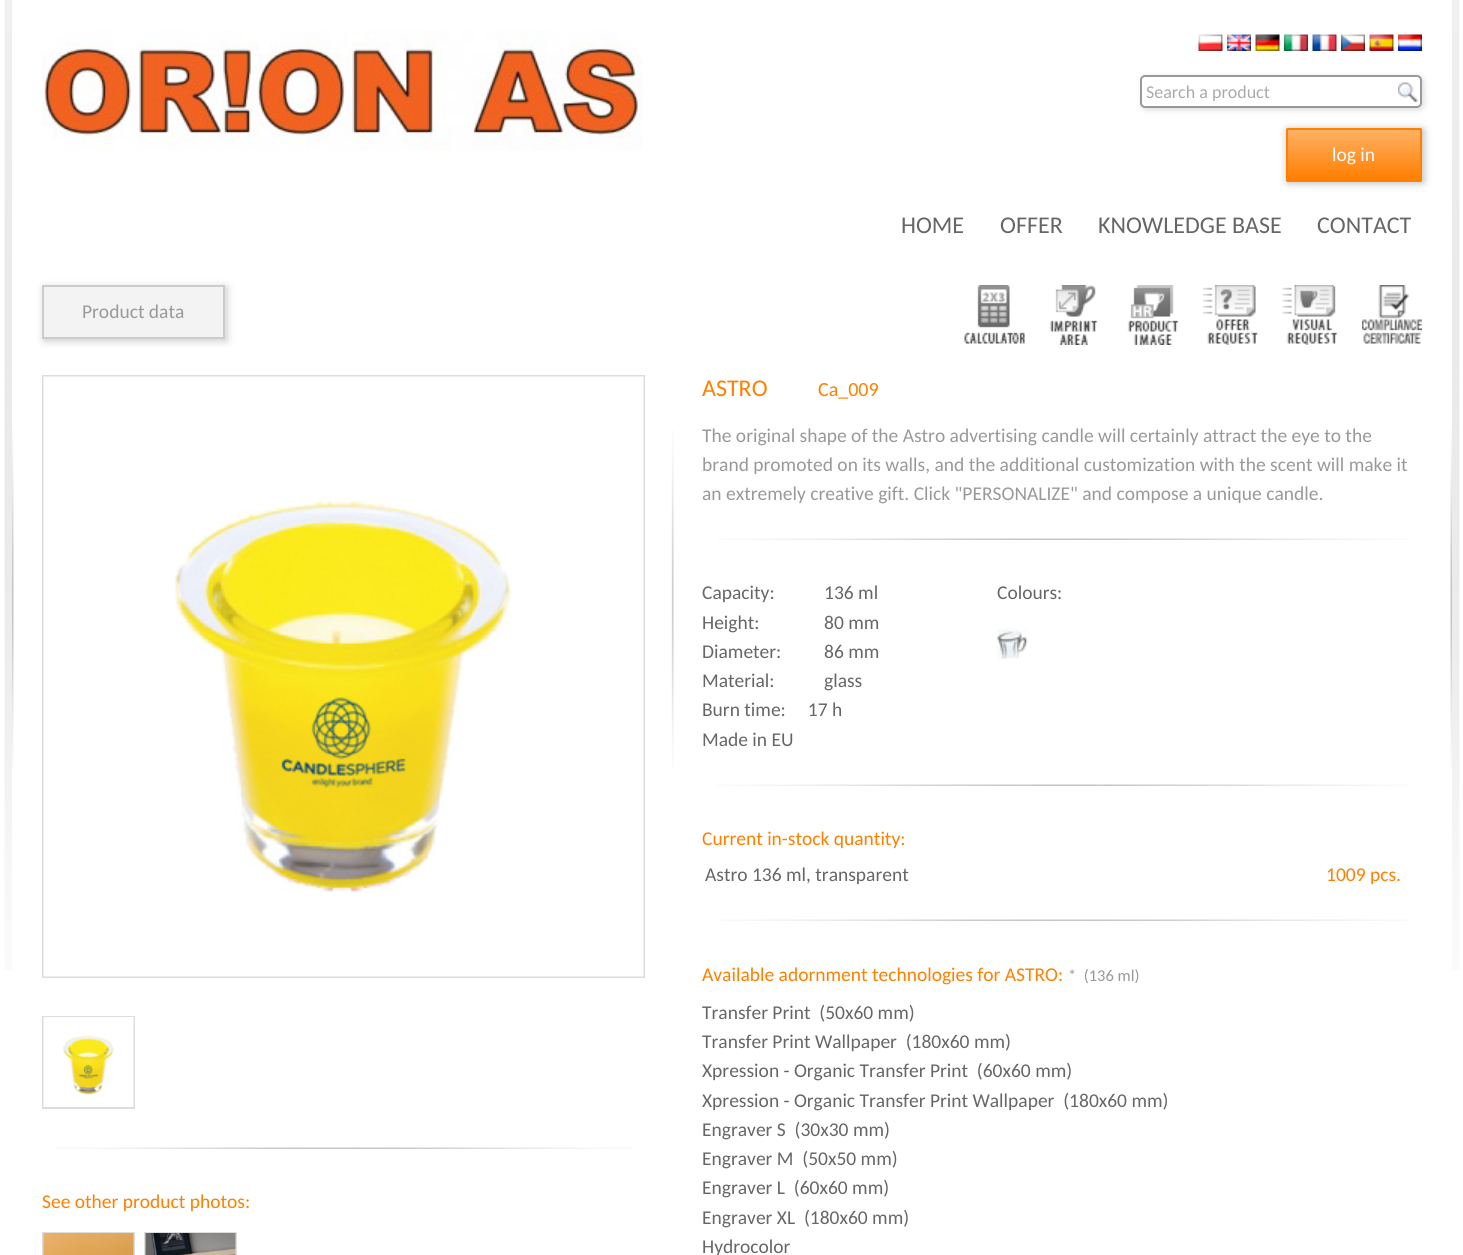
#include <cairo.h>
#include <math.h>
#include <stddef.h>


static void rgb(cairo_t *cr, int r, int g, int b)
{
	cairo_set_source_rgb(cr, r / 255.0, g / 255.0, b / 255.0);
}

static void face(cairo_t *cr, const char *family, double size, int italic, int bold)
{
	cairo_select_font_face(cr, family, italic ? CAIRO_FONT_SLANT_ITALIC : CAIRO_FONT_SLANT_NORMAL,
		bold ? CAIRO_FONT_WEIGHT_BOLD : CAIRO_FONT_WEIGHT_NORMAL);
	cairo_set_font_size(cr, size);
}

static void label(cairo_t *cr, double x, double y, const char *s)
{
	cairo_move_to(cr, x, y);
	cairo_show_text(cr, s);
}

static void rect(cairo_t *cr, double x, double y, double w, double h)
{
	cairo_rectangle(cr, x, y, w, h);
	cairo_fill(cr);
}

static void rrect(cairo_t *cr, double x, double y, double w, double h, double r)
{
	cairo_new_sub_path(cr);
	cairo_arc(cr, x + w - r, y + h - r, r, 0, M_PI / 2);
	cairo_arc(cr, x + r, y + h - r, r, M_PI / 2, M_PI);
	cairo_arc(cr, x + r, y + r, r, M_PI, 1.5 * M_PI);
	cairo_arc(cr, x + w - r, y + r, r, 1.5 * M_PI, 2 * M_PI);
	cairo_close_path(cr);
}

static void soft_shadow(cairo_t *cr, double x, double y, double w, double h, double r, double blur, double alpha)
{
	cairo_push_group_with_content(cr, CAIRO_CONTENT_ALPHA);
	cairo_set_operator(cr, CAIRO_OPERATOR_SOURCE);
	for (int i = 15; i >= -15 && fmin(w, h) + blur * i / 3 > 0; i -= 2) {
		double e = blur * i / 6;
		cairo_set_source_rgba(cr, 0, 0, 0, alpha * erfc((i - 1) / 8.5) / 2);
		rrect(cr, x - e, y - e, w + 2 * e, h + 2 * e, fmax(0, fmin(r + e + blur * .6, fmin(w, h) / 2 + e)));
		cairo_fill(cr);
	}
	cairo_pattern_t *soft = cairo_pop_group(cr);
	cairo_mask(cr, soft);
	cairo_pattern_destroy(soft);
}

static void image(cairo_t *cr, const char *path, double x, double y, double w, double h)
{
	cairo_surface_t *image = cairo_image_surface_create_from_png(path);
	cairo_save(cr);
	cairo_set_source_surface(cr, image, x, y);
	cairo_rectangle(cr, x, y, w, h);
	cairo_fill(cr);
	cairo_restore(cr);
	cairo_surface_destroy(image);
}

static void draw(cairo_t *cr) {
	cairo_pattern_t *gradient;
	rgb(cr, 255, 255, 255);
	cairo_paint(cr);
	image(cr, "image0.png", 4, 0, 8, 971);
	image(cr, "image1.png", 42, 30, 600, 121);
	image(cr, "image2.png", 1198, 34, 25, 17);
	image(cr, "image3.png", 1227, 34, 24, 17);
	image(cr, "image4.png", 1255, 34, 25, 17);
	image(cr, "image5.png", 1284, 34, 24, 17);
	image(cr, "image6.png", 1312, 34, 25, 17);
	image(cr, "image7.png", 1341, 34, 24, 17);
	image(cr, "image8.png", 1369, 34, 25, 17);
	image(cr, "image9.png", 1398, 34, 24, 17);
	cairo_save(cr);
	cairo_set_fill_rule(cr, CAIRO_FILL_RULE_EVEN_ODD);
	cairo_new_path(cr);
	cairo_move_to(cr, 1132, 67);
	cairo_line_to(cr, 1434, 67);
	cairo_line_to(cr, 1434, 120);
	cairo_line_to(cr, 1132, 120);
	cairo_close_path(cr);
	cairo_move_to(cr, 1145, 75);
	cairo_line_to(cr, 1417, 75);
	cairo_curve_to(cr, 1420, 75, 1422, 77, 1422, 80);
	cairo_line_to(cr, 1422, 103);
	cairo_curve_to(cr, 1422, 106, 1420, 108, 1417, 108);
	cairo_line_to(cr, 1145, 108);
	cairo_curve_to(cr, 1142, 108, 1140, 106, 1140, 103);
	cairo_line_to(cr, 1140, 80);
	cairo_curve_to(cr, 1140, 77, 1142, 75, 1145, 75);
	cairo_close_path(cr);
	cairo_clip(cr);
	rgb(cr, 221, 221, 221);
	soft_shadow(cr, 1142, 77, 282, 33, 5, 3, 1);
	cairo_restore(cr);
	image(cr, "image10.png", 1398, 82, 20, 20);
	rrect(cr, 1141, 76, 280, 31, 4);
	rgb(cr, 153, 153, 153);
	cairo_stroke(cr);
	face(cr, "Carlito", 18, 0, 0);
	rgb(cr, 170, 170, 170);
	label(cr, 1146, 98, "Search a product");
	rgb(cr, 187, 187, 187);
	soft_shadow(cr, 1287, 129, 137, 54, 1.5, 4, 1);
	gradient = cairo_pattern_create_linear(1354, 129, 1354, 180);
	cairo_pattern_add_color_stop_rgba(gradient, 0, 1, 0.698, 0.4, 1);
	cairo_pattern_add_color_stop_rgba(gradient, 1, 1, 0.498, 0, 1);
	cairo_set_source(cr, gradient);
	cairo_pattern_destroy(gradient);
	rect(cr, 1286, 129, 136, 51);
	rrect(cr, 1287, 129, 134, 52, 0.5);
	rgb(cr, 255, 127, 0);
	cairo_stroke(cr);
	face(cr, "Carlito", 19.5, 0, 0);
	rgb(cr, 255, 255, 255);
	label(cr, 1332, 161, "log in");
	face(cr, "Carlito", 24, 0, 0);
	rgb(cr, 102, 102, 102);
	label(cr, 901, 233, "HOME");
	label(cr, 1000, 233, "OFFER");
	label(cr, 1098, 233, "KNOWLEDGE BASE");
	label(cr, 1317, 233, "CONTACT");
	image(cr, "image11.png", 12, 430, 1440, 339);
	rgb(cr, 204, 204, 204);
	soft_shadow(cr, 44, 287, 183, 54, 0, 4, 1);
	rgb(cr, 243, 243, 243);
	cairo_rectangle(cr, 43, 286, 181, 52);
	cairo_fill_preserve(cr);
	rgb(cr, 204, 204, 204);
	cairo_stroke(cr);
	face(cr, "Carlito", 19.5, 0, 0);
	rgb(cr, 153, 153, 153);
	label(cr, 82, 318, "Product data");
	image(cr, "image12.png", 964, 285, 61, 59);
	image(cr, "image13.png", 1049, 285, 49, 60);
	image(cr, "image14.png", 1127, 285, 52, 60);
	image(cr, "image15.png", 1203, 285, 56, 60);
	image(cr, "image16.png", 1282, 285, 56, 60);
	image(cr, "image17.png", 1362, 285, 60, 59);
	cairo_rectangle(cr, 43, 376, 601, 601);
	rgb(cr, 221, 221, 221);
	cairo_stroke(cr);
	image(cr, "image18.png", 43, 376, 601, 601);
	cairo_rectangle(cr, 43, 1017, 91, 91);
	cairo_stroke(cr);
	image(cr, "image19.png", 43, 1017, 91, 90);
	image(cr, "image20.png", 56, 1147, 575, 2);
	rgb(cr, 255, 127, 0);
	label(cr, 42, 1208, "See other product photos:");
	cairo_rectangle(cr, 43, 1233, 91, 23);
	rgb(cr, 221, 221, 221);
	cairo_stroke(cr);
	image(cr, "image21.png", 43, 1233, 91, 22);
	cairo_rectangle(cr, 145, 1233, 91, 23);
	cairo_stroke(cr);
	image(cr, "image22.png", 145, 1233, 91, 22);
	face(cr, "Carlito", 24, 0, 0);
	rgb(cr, 255, 127, 0);
	label(cr, 702, 396, "ASTRO");
	face(cr, "Carlito", 20, 0, 0);
	label(cr, 818, 396, "Ca_009");
	face(cr, "Carlito", 19.5, 0, 0);
	rgb(cr, 153, 153, 153);
	label(cr, 702, 442, "The original shape of the Astro advertising candle will certainly attract the eye to the");
	label(cr, 702, 471, "brand promoted on its walls, and the additional customization with the scent will make it");
	label(cr, 702, 500, "an extremely creative gift. Click \"PERSONALIZE\" and compose a unique candle.");
	image(cr, "image23.png", 718, 538, 691, 2);
	rgb(cr, 102, 102, 102);
	label(cr, 702, 599, "Capacity:");
	label(cr, 824, 599, "136 ml");
	label(cr, 997, 599, "Colours:");
	label(cr, 702, 629, "Height:");
	label(cr, 824, 629, "80 mm");
	image(cr, "image24.png", 997, 628, 31, 31);
	label(cr, 702, 658, "Diameter:");
	label(cr, 824, 658, "86 mm");
	label(cr, 702, 687, "Material:");
	label(cr, 824, 687, "glass");
	label(cr, 702, 716, "Burn time:     17 h");
	label(cr, 702, 746, "Made in EU");
	image(cr, "image23.png", 718, 784, 691, 2);
	rgb(cr, 255, 127, 0);
	label(cr, 702, 845, "Current in-stock quantity:");
	rgb(cr, 102, 102, 102);
	label(cr, 705, 881, "Astro 136 ml, transparent");
	rgb(cr, 255, 127, 0);
	label(cr, 1326, 881, "1009 pcs.");
	image(cr, "image23.png", 718, 919, 691, 2);
	label(cr, 702, 981, "Available adornment technologies for ASTRO:");
	face(cr, "Carlito", 16.5, 0, 0);
	rgb(cr, 153, 153, 153);
	label(cr, 1068, 981, "*  (136 ml)");
	face(cr, "Carlito", 19.5, 0, 0);
	rgb(cr, 102, 102, 102);
	label(cr, 702, 1019, "Transfer Print  (50x60 mm)");
	label(cr, 702, 1048, "Transfer Print Wallpaper  (180x60 mm)");
	label(cr, 702, 1077, "Xpression - Organic Transfer Print  (60x60 mm)");
	label(cr, 702, 1107, "Xpression - Organic Transfer Print Wallpaper  (180x60 mm)");
	label(cr, 702, 1136, "Engraver S  (30x30 mm)");
	label(cr, 702, 1165, "Engraver M  (50x50 mm)");
	label(cr, 702, 1194, "Engraver L  (60x60 mm)");
	label(cr, 702, 1224, "Engraver XL  (180x60 mm)");
	label(cr, 702, 1253, "Hydrocolor");
	image(cr, "image25.png", 1452, 0, 8, 971);
}

int main(void) {
	cairo_surface_t *surface = cairo_image_surface_create(CAIRO_FORMAT_RGB24, 1463, 1255);
	cairo_t *cr = cairo_create(surface);
	cairo_font_options_t *options = cairo_font_options_create();
	cairo_font_options_set_hint_metrics(options, CAIRO_HINT_METRICS_OFF);
	cairo_font_options_set_hint_style(options, CAIRO_HINT_STYLE_NONE);
	cairo_set_font_options(cr, options);
	cairo_set_miter_limit(cr, 4);
	draw(cr);
	cairo_surface_write_to_png(surface, "render.png");
	cairo_font_options_destroy(options);
	cairo_destroy(cr);
	cairo_surface_destroy(surface);
	return 0;
}
